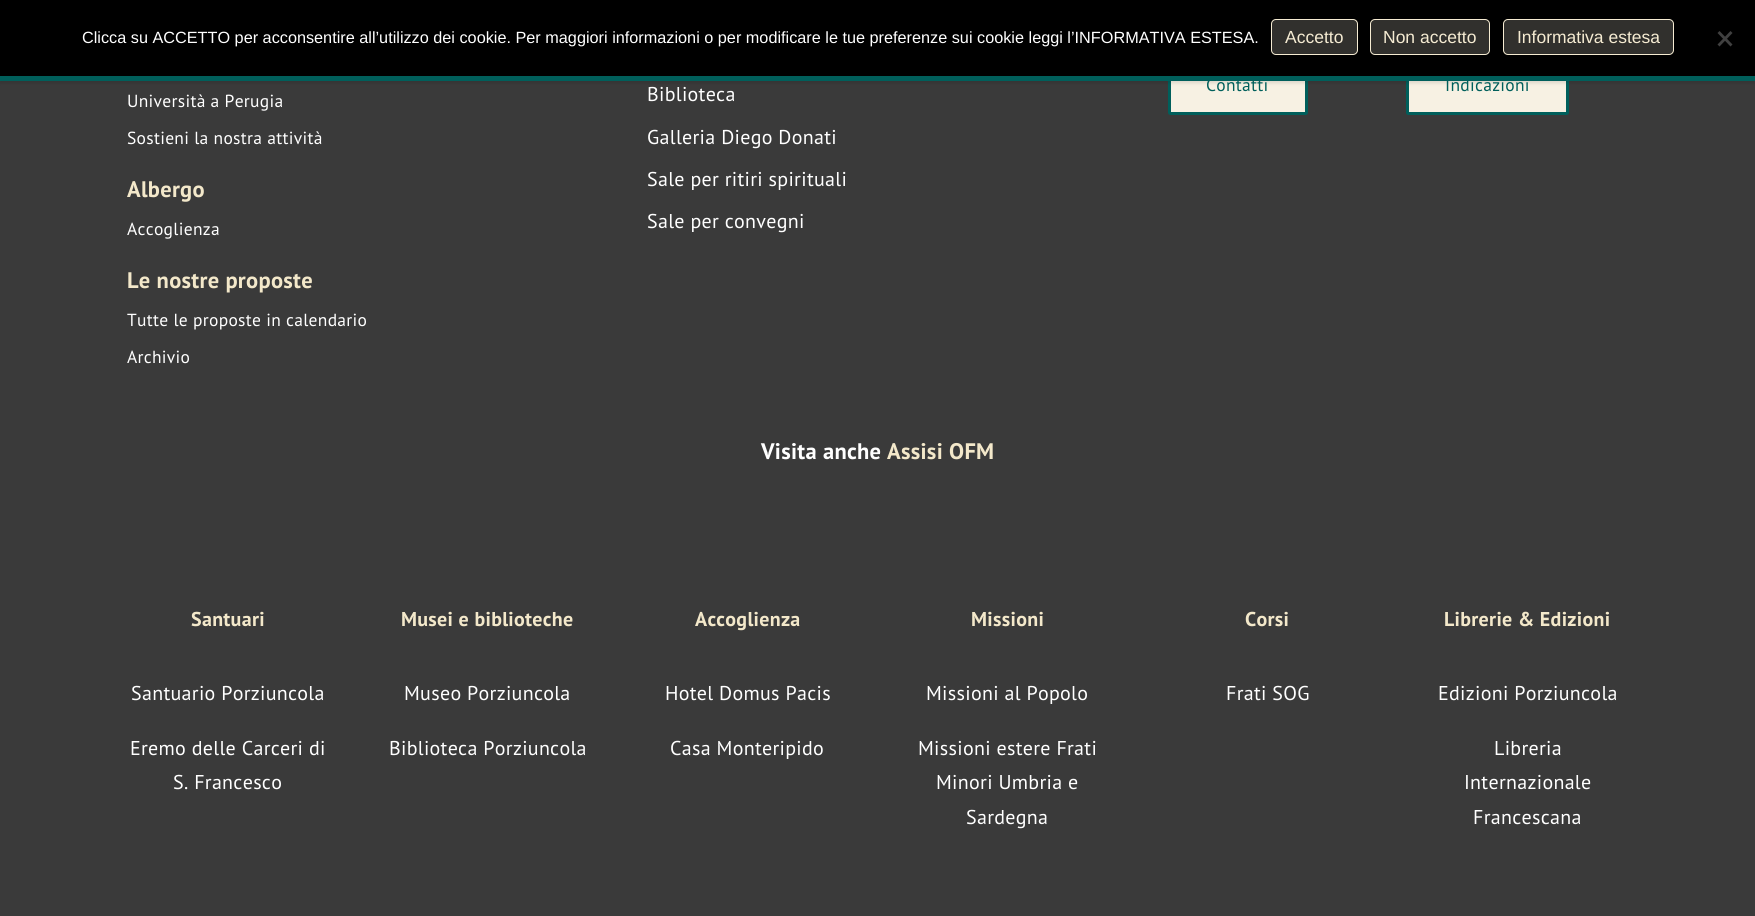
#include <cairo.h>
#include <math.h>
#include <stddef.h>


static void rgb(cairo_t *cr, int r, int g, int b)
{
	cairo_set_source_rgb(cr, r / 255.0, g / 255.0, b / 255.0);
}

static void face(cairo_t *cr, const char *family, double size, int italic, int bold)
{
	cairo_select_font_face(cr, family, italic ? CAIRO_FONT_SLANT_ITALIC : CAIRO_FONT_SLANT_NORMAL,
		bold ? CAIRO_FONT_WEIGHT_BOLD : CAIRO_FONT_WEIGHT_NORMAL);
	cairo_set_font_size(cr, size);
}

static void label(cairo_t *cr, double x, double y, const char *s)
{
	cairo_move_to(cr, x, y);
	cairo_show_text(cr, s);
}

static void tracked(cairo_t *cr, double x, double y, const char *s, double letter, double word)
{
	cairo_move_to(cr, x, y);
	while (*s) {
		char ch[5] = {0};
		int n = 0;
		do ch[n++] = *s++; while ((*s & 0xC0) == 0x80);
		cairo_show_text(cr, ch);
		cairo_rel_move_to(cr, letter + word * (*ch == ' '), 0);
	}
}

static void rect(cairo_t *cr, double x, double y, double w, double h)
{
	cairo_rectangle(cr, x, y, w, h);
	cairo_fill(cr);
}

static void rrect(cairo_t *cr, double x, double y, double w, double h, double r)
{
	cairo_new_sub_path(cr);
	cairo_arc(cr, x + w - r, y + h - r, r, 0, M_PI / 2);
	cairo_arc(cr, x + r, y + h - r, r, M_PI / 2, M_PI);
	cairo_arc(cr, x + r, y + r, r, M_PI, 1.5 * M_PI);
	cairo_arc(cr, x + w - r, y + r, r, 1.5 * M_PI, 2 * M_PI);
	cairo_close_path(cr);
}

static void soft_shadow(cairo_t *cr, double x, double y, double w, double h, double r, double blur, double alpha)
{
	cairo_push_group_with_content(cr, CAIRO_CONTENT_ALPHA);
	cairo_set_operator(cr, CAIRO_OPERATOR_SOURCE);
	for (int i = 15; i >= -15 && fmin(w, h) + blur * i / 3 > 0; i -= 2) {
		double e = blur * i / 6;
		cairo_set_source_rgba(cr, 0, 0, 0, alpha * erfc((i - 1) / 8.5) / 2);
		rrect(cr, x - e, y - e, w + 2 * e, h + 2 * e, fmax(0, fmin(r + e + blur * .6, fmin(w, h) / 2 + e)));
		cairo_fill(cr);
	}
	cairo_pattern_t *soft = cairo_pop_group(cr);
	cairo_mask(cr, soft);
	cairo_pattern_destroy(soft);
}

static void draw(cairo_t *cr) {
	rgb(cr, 58, 58, 58);
	cairo_paint(cr);
	rgb(cr, 247, 241, 227);
	rrect(cr, 1169.5, 57.5, 137, 56, 1);
	cairo_fill_preserve(cr);
	rgb(cr, 0, 95, 91);
	cairo_set_line_width(cr, 3);
	cairo_stroke(cr);
	rgb(cr, 247, 241, 227);
	rrect(cr, 1407.5, 57.5, 160, 56, 1);
	cairo_fill_preserve(cr);
	rgb(cr, 0, 95, 91);
	cairo_stroke(cr);
	rgb(cr, 0, 0, 0);
	soft_shadow(cr, 0, 1, 1755, 82, 0, 2, 0.12);
	rgb(cr, 0, 0, 0);
	rect(cr, 0, 0, 1755, 76);
	face(cr, "Liberation Sans", 16.25, 0, 0);
	rgb(cr, 255, 255, 255);
	label(cr, 82, 43, "Clicca su ACCETTO per acconsentire all’utilizzo dei cookie. Per maggiori informazioni o per modificare le tue preferenze sui cookie leggi l’INFORMATIVA ESTESA.");
	rgb(cr, 49, 48, 45);
	rrect(cr, 1271.5, 19.5, 86, 35, 4.5);
	cairo_fill_preserve(cr);
	rgb(cr, 245, 235, 210);
	cairo_set_line_width(cr, 1);
	cairo_stroke(cr);
	face(cr, "Liberation Sans", 17.5, 0, 0);
	label(cr, 1285, 43, "Accetto");
	rgb(cr, 49, 48, 45);
	rrect(cr, 1370.5, 19.5, 119, 35, 4.5);
	cairo_fill_preserve(cr);
	rgb(cr, 245, 235, 210);
	cairo_stroke(cr);
	label(cr, 1383, 43, "Non accetto");
	rgb(cr, 49, 48, 45);
	rrect(cr, 1503.5, 19.5, 170, 35, 4.5);
	cairo_fill_preserve(cr);
	rgb(cr, 245, 235, 210);
	cairo_stroke(cr);
	label(cr, 1517, 43, "Informativa estesa");
	rgb(cr, 64, 64, 64);
	cairo_new_path(cr);
	cairo_move_to(cr, 1730.5, 31);
	cairo_line_to(cr, 1732.5, 33);
	cairo_line_to(cr, 1719.5, 46.5);
	cairo_line_to(cr, 1717.5, 44.5);
	cairo_close_path(cr);
	cairo_fill(cr);
	cairo_new_path(cr);
	cairo_move_to(cr, 1717.5, 33);
	cairo_line_to(cr, 1719.5, 31);
	cairo_line_to(cr, 1732.5, 44.5);
	cairo_line_to(cr, 1730.5, 46.5);
	cairo_close_path(cr);
	cairo_fill(cr);
	rgb(cr, 0, 95, 91);
	rect(cr, 0, 76, 1755, 5);
	face(cr, "PT Sans", 17.5, 0, 0);
	rgb(cr, 255, 255, 255);
	tracked(cr, 127, 107, "Università a Perugia", 0.3, 0);
	tracked(cr, 127, 144, "Sostieni la nostra attività", 0.3, 0);
	face(cr, "PT Sans", 22.5, 0, 1);
	rgb(cr, 243, 232, 202);
	tracked(cr, 127, 197, "Albergo", 0.3, 0);
	face(cr, "PT Sans", 17.5, 0, 0);
	rgb(cr, 255, 255, 255);
	tracked(cr, 127, 235, "Accoglienza", 0.3, 0);
	face(cr, "PT Sans", 22.5, 0, 1);
	rgb(cr, 243, 232, 202);
	tracked(cr, 127, 288, "Le nostre proposte", 0.3, 0);
	face(cr, "PT Sans", 17.5, 0, 0);
	rgb(cr, 255, 255, 255);
	tracked(cr, 127, 326, "Tutte le proposte in calendario", 0.3, 0);
	tracked(cr, 127, 363, "Archivio", 0.3, 0);
	face(cr, "PT Sans", 20, 0, 0);
	tracked(cr, 647, 101, "Biblioteca", 0.3, 0);
	tracked(cr, 647, 144, "Galleria Diego Donati", 0.3, 0);
	tracked(cr, 647, 186, "Sale per ritiri spirituali", 0.3, 0);
	tracked(cr, 647, 228, "Sale per convegni", 0.3, 0);
	face(cr, "PT Sans", 17.5, 0, 0);
	rgb(cr, 0, 95, 91);
	tracked(cr, 1206, 91, "Contatti", 0.3, 0);
	tracked(cr, 1445, 91, "Indicazioni", 0.3, 0);
	face(cr, "PT Sans", 22.5, 0, 1);
	rgb(cr, 255, 255, 255);
	tracked(cr, 761, 459, "Visita anche", 0.3, 0);
	rgb(cr, 243, 232, 202);
	tracked(cr, 887, 459, "Assisi OFM", 0.3, 0);
	face(cr, "PT Sans", 20, 0, 1);
	tracked(cr, 191, 626, "Santuari", 0.3, 0);
	face(cr, "PT Sans", 20, 0, 0);
	rgb(cr, 255, 255, 255);
	tracked(cr, 131, 700, "Santuario Porziuncola", 0.3, 0);
	tracked(cr, 130, 755, "Eremo delle Carceri di", 0.3, 0);
	tracked(cr, 173, 789, "S. Francesco", 0.3, 0);
	face(cr, "PT Sans", 20, 0, 1);
	rgb(cr, 243, 232, 202);
	tracked(cr, 401, 626, "Musei e biblioteche", 0.3, 0);
	face(cr, "PT Sans", 20, 0, 0);
	rgb(cr, 255, 255, 255);
	tracked(cr, 404, 700, "Museo Porziuncola", 0.3, 0);
	tracked(cr, 389, 755, "Biblioteca Porziuncola", 0.3, 0);
	face(cr, "PT Sans", 20, 0, 1);
	rgb(cr, 243, 232, 202);
	tracked(cr, 695, 626, "Accoglienza", 0.3, 0);
	face(cr, "PT Sans", 20, 0, 0);
	rgb(cr, 255, 255, 255);
	tracked(cr, 665, 700, "Hotel Domus Pacis", 0.3, 0);
	tracked(cr, 670, 755, "Casa Monteripido", 0.3, 0);
	face(cr, "PT Sans", 20, 0, 1);
	rgb(cr, 243, 232, 202);
	tracked(cr, 971, 626, "Missioni", 0.3, 0);
	face(cr, "PT Sans", 20, 0, 0);
	rgb(cr, 255, 255, 255);
	tracked(cr, 926, 700, "Missioni al Popolo", 0.3, 0);
	tracked(cr, 918, 755, "Missioni estere Frati", 0.3, 0);
	tracked(cr, 936, 789, "Minori Umbria e", 0.3, 0);
	tracked(cr, 966, 824, "Sardegna", 0.3, 0);
	face(cr, "PT Sans", 20, 0, 1);
	rgb(cr, 243, 232, 202);
	tracked(cr, 1245, 626, "Corsi", 0.3, 0);
	face(cr, "PT Sans", 20, 0, 0);
	rgb(cr, 255, 255, 255);
	tracked(cr, 1226, 700, "Frati SOG", 0.3, 0);
	face(cr, "PT Sans", 20, 0, 1);
	rgb(cr, 243, 232, 202);
	tracked(cr, 1444, 626, "Librerie & Edizioni", 0.3, 0);
	face(cr, "PT Sans", 20, 0, 0);
	rgb(cr, 255, 255, 255);
	tracked(cr, 1438, 700, "Edizioni Porziuncola", 0.3, 0);
	tracked(cr, 1494, 755, "Libreria", 0.3, 0);
	tracked(cr, 1464, 789, "Internazionale", 0.3, 0);
	tracked(cr, 1473, 824, "Francescana", 0.3, 0);
}

int main(void) {
	cairo_surface_t *surface = cairo_image_surface_create(CAIRO_FORMAT_RGB24, 1755, 916);
	cairo_t *cr = cairo_create(surface);
	cairo_font_options_t *options = cairo_font_options_create();
	cairo_font_options_set_hint_metrics(options, CAIRO_HINT_METRICS_OFF);
	cairo_font_options_set_hint_style(options, CAIRO_HINT_STYLE_NONE);
	cairo_set_font_options(cr, options);
	cairo_set_miter_limit(cr, 4);
	draw(cr);
	cairo_surface_write_to_png(surface, "render.png");
	cairo_font_options_destroy(options);
	cairo_destroy(cr);
	cairo_surface_destroy(surface);
	return 0;
}
